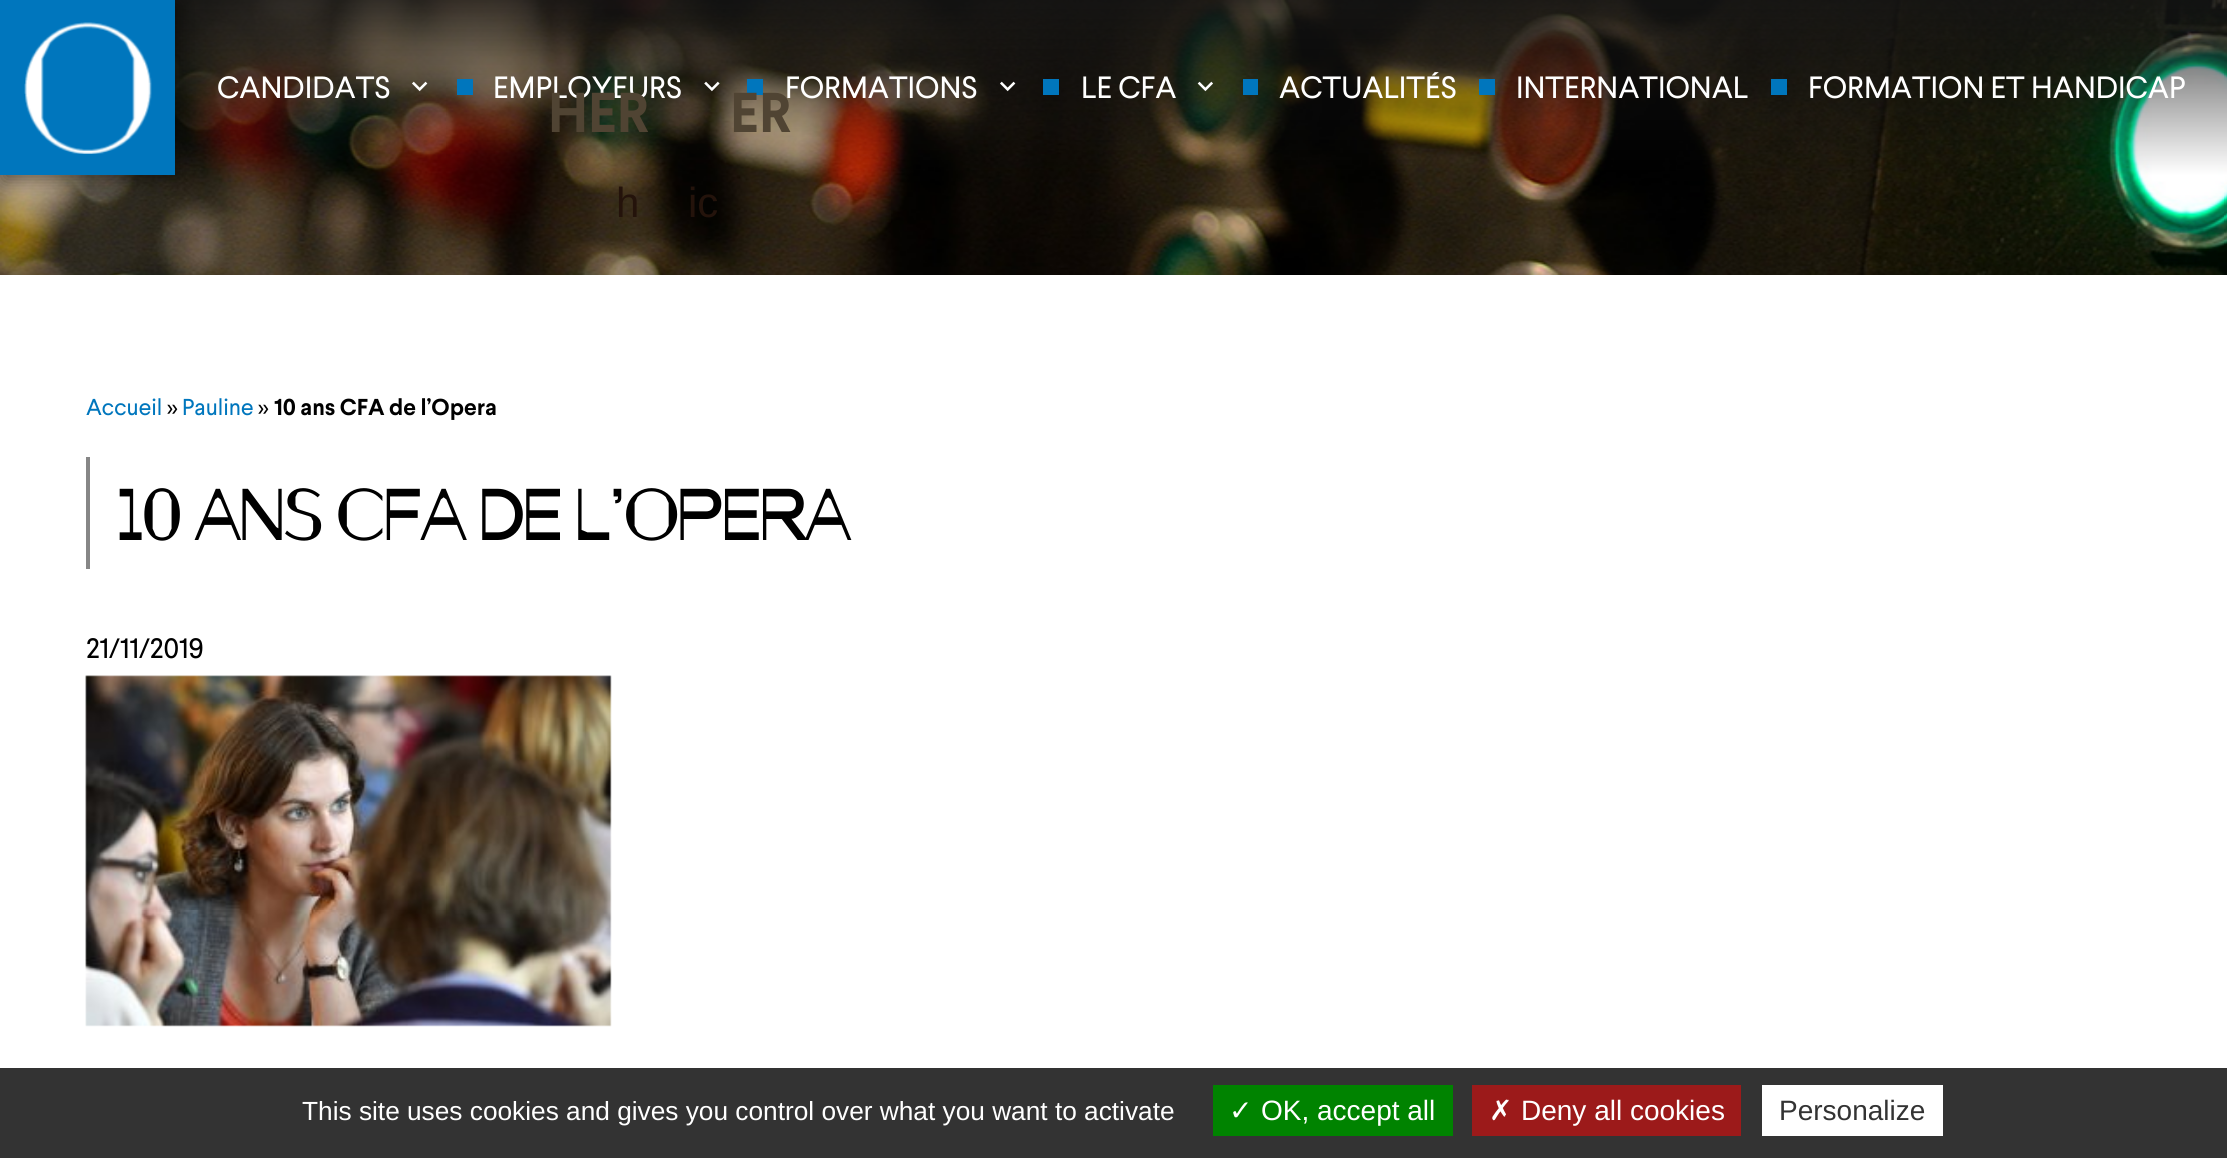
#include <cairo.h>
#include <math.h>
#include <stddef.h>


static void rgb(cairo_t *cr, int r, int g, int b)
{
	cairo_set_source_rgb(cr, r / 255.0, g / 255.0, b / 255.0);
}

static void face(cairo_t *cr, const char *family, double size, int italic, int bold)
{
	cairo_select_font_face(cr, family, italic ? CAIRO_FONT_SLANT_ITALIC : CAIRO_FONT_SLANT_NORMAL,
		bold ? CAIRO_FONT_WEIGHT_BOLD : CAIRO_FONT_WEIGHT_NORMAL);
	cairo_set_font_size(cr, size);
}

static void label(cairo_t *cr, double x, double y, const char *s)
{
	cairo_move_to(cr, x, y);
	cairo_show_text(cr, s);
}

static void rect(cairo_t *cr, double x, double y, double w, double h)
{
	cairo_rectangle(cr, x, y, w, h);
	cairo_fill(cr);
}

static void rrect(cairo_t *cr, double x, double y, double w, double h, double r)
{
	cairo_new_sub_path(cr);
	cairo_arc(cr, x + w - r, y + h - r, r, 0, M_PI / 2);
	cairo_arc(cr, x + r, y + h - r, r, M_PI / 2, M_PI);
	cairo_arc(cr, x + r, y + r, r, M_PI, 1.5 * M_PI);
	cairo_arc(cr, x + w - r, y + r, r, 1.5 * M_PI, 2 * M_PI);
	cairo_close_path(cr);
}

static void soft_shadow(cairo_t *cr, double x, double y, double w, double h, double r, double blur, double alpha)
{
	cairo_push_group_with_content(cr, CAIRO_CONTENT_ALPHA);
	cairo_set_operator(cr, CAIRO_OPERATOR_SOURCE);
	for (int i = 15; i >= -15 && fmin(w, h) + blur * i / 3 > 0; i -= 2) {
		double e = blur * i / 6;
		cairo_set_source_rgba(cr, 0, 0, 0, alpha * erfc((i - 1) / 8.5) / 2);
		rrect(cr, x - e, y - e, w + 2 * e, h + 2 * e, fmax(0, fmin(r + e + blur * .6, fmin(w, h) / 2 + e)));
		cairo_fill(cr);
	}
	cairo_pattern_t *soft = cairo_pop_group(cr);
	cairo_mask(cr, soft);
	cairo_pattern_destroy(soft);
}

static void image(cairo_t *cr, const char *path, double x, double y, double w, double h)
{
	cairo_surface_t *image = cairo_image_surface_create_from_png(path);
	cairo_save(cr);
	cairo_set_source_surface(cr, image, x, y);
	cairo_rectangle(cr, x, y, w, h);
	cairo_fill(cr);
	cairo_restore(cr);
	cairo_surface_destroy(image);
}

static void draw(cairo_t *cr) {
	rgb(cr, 255, 255, 255);
	cairo_paint(cr);
	image(cr, "image0.png", 0, 0, 2227, 275);
	rgb(cr, 0, 0, 0);
	soft_shadow(cr, 4, 4, 175, 175, 0, 9, 0.5);
	rgb(cr, 0, 118, 189);
	rect(cr, 0, 0, 175, 175);
	image(cr, "image1.png", 24, 22, 128, 132);
	face(cr, "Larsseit", 30.75, 0, 0);
	rgb(cr, 255, 255, 255);
	label(cr, 217, 98, "CANDIDATS");
	image(cr, "image2.png", 412, 81, 16, 11);
	rgb(cr, 0, 118, 189);
	rect(cr, 457, 79, 16, 16);
	rgb(cr, 255, 255, 255);
	label(cr, 493, 98, "EMPLOYEURS");
	image(cr, "image3.png", 704, 81, 16, 11);
	rgb(cr, 0, 118, 189);
	rect(cr, 747, 79, 16, 16);
	rgb(cr, 255, 255, 255);
	label(cr, 785, 98, "FORMATIONS");
	image(cr, "image4.png", 1000, 81, 16, 11);
	rgb(cr, 0, 118, 189);
	rect(cr, 1043, 79, 16, 16);
	rgb(cr, 255, 255, 255);
	label(cr, 1081, 98, "LE CFA");
	image(cr, "image5.png", 1197, 81, 16, 11);
	rgb(cr, 0, 118, 189);
	rect(cr, 1243, 79, 15, 16);
	rgb(cr, 255, 255, 255);
	label(cr, 1279, 98, "ACTUALITÉS");
	rgb(cr, 0, 118, 189);
	rect(cr, 1479, 79, 16, 16);
	rgb(cr, 255, 255, 255);
	label(cr, 1516, 98, "INTERNATIONAL");
	rgb(cr, 0, 118, 189);
	rect(cr, 1771, 79, 16, 16);
	rgb(cr, 255, 255, 255);
	label(cr, 1808, 98, "FORMATION ET HANDICAP");
	face(cr, "Larsseit", 56, 0, 1);
	rgb(cr, 80, 68, 51);
	label(cr, 548, 132, "HER");
	label(cr, 730, 132, "ER");
	face(cr, "Liberation Sans", 42, 0, 0);
	rgb(cr, 36, 19, 11);
	label(cr, 616, 217, "h");
	label(cr, 688, 217, "ic");
	face(cr, "Larsseit", 23, 0, 0);
	rgb(cr, 0, 118, 189);
	label(cr, 86, 415, "Accueil");
	rgb(cr, 0, 0, 0);
	label(cr, 167, 415, "»");
	rgb(cr, 0, 118, 189);
	label(cr, 182, 415, "Pauline");
	rgb(cr, 0, 0, 0);
	label(cr, 258, 415, "»");
	face(cr, "Larsseit", 23, 0, 1);
	label(cr, 274, 415, "10 ans CFA de l’Opera");
	rgb(cr, 134, 134, 134);
	rect(cr, 86, 457, 4, 112);
	face(cr, "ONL", 70, 0, 1);
	rgb(cr, 0, 0, 0);
	label(cr, 117, 540, "10 ANS CFA DE L’OPERA");
	face(cr, "Larsseit", 28, 0, 0);
	label(cr, 86, 658, "21/11/2019");
	image(cr, "image6.png", 85, 675, 527, 352);
	rgb(cr, 51, 51, 51);
	rect(cr, 0, 1068, 2227, 90);
	face(cr, "Liberation Sans", 26.25, 0, 0);
	rgb(cr, 255, 255, 255);
	label(cr, 302, 1120, "This site uses cookies and gives you control over what you want to activate");
	rgb(cr, 0, 131, 0);
	rect(cr, 1213, 1085, 240, 51);
	face(cr, "DejaVu Sans", 28, 0, 0);
	rgb(cr, 255, 255, 255);
	label(cr, 1229, 1120, "✓");
	face(cr, "Liberation Sans", 28, 0, 0);
	label(cr, 1261, 1120, "OK, accept all");
	rgb(cr, 156, 26, 26);
	rect(cr, 1472, 1085, 269, 51);
	face(cr, "DejaVu Sans", 28, 0, 0);
	rgb(cr, 255, 255, 255);
	label(cr, 1489, 1120, "✗");
	face(cr, "Liberation Sans", 28, 0, 0);
	label(cr, 1521, 1120, "Deny all cookies");
	rect(cr, 1762, 1085, 181, 51);
	rgb(cr, 51, 51, 51);
	label(cr, 1779, 1120, "Personalize");
}

int main(void) {
	cairo_surface_t *surface = cairo_image_surface_create(CAIRO_FORMAT_RGB24, 2227, 1158);
	cairo_t *cr = cairo_create(surface);
	cairo_font_options_t *options = cairo_font_options_create();
	cairo_font_options_set_hint_metrics(options, CAIRO_HINT_METRICS_OFF);
	cairo_font_options_set_hint_style(options, CAIRO_HINT_STYLE_NONE);
	cairo_set_font_options(cr, options);
	cairo_set_miter_limit(cr, 4);
	draw(cr);
	cairo_surface_write_to_png(surface, "render.png");
	cairo_font_options_destroy(options);
	cairo_destroy(cr);
	cairo_surface_destroy(surface);
	return 0;
}
